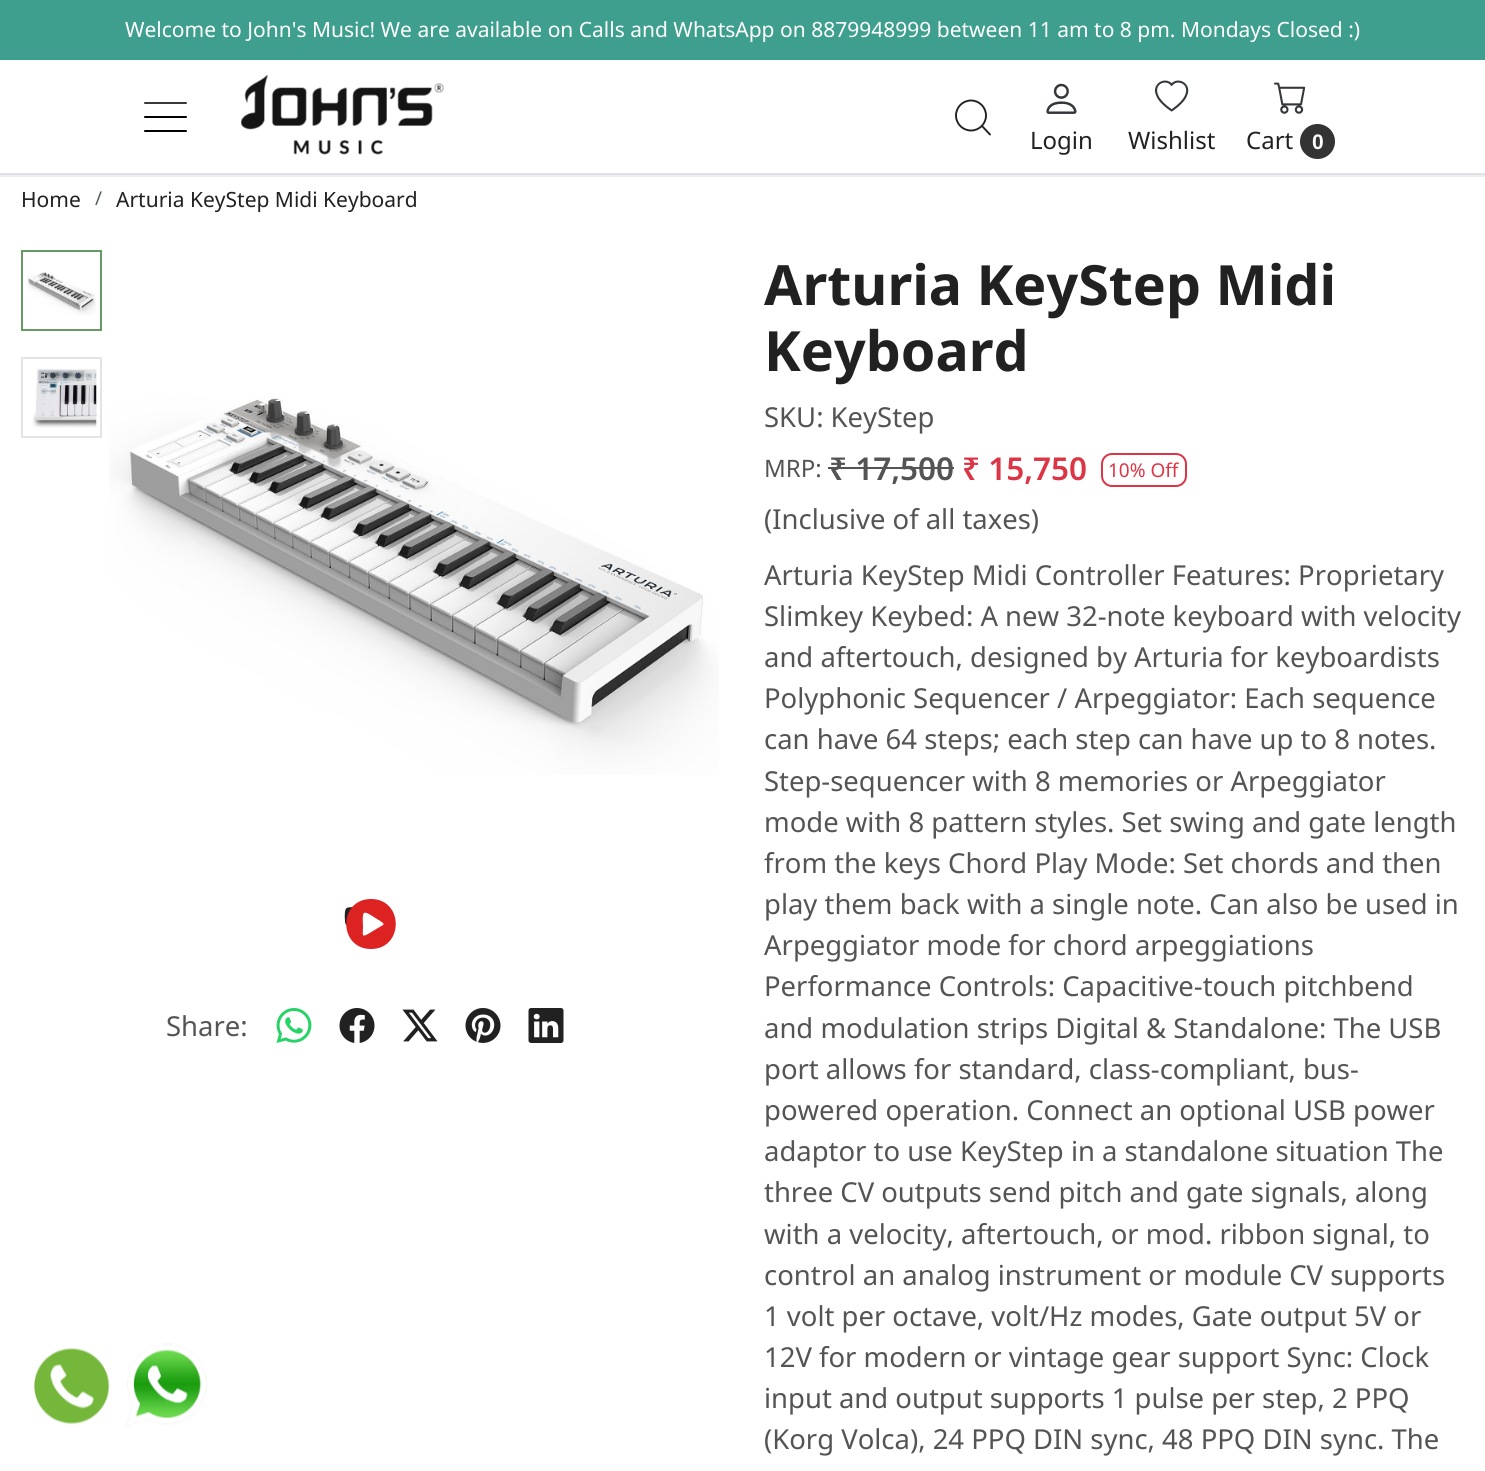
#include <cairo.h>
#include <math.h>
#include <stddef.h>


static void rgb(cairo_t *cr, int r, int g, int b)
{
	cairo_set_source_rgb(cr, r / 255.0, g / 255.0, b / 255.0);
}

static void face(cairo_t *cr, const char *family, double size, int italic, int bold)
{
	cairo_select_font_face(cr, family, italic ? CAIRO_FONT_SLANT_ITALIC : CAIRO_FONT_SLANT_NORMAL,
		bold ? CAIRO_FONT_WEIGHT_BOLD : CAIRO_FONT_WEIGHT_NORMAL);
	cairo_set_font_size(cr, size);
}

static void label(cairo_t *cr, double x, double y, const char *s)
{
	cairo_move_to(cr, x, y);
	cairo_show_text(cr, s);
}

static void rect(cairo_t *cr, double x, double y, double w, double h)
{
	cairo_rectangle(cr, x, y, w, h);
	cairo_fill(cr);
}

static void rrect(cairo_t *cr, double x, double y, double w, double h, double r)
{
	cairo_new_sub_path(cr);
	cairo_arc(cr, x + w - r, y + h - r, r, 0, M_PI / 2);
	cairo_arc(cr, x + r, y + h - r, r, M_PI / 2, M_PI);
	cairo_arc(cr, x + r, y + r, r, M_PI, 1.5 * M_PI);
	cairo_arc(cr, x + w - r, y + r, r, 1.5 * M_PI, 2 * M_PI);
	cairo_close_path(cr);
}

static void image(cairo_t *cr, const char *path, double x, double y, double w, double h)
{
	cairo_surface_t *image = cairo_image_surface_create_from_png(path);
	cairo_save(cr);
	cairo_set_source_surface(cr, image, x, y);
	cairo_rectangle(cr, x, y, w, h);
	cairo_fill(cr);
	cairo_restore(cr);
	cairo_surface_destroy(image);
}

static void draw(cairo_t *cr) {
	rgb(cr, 255, 255, 255);
	cairo_paint(cr);
	rgb(cr, 62, 159, 142);
	rect(cr, 0, 0, 1485, 60);
	face(cr, "Noto Sans", 21, 0, 0);
	rgb(cr, 255, 255, 255);
	label(cr, 125, 37, "Welcome to John's Music! We are available on Calls and WhatsApp on 8879948999 between 11 am to 8 pm. Mondays Closed :)");
	rgb(cr, 238, 238, 238);
	rect(cr, 0, 175, 1485, 2);
	rgb(cr, 0, 0, 0);
	rrect(cr, 144, 130, 43, 2, 1);
	cairo_fill(cr);
	rrect(cr, 144, 116, 43, 2, 1);
	cairo_fill(cr);
	rgb(cr, 52, 58, 64);
	rrect(cr, 144, 102, 43, 2, 1);
	cairo_fill(cr);
	image(cr, "image0.png", 240, 74, 204, 81);
	cairo_arc(cr, 971, 115.5, 15, 0, 2 * M_PI);
	rgb(cr, 33, 33, 33);
	cairo_set_line_width(cr, 1.9);
	cairo_stroke(cr);
	cairo_new_path(cr);
	cairo_move_to(cr, 990, 134.5);
	cairo_line_to(cr, 982, 126);
	cairo_set_line_cap(cr, CAIRO_LINE_CAP_ROUND);
	cairo_set_line_join(cr, CAIRO_LINE_JOIN_ROUND);
	cairo_stroke(cr);
	image(cr, "image1.png", 1046, 83, 31, 31);
	face(cr, "Noto Sans", 24, 0, 0);
	label(cr, 1030, 149, "Login");
	image(cr, "image2.png", 1155, 80, 34, 32);
	label(cr, 1128, 149, "Wishlist");
	image(cr, "image3.png", 1274, 82, 32, 32);
	label(cr, 1246, 149, "Cart");
	rgb(cr, 51, 51, 51);
	cairo_new_path(cr);
	cairo_arc(cr, 1317.5, 141.5, 17.5, 0, 2 * M_PI);
	cairo_fill(cr);
	face(cr, "Liberation Sans", 21, 0, 1);
	rgb(cr, 255, 255, 255);
	label(cr, 1312, 149, "0");
	rgb(cr, 222, 226, 230);
	rect(cr, 0, 173, 1485, 2);
	face(cr, "Noto Sans", 21, 0, 0);
	rgb(cr, 33, 33, 33);
	label(cr, 21, 207, "Home");
	face(cr, "Noto Sans", 19, 0, 0);
	rgb(cr, 89, 92, 95);
	label(cr, 95, 205, "/");
	face(cr, "Noto Sans", 21, 0, 0);
	rgb(cr, 33, 33, 33);
	label(cr, 116, 207, "Arturia KeyStep Midi Keyboard");
	cairo_rectangle(cr, 22, 251, 79, 79);
	rgb(cr, 102, 153, 102);
	cairo_set_line_width(cr, 2);
	cairo_set_line_cap(cr, CAIRO_LINE_CAP_BUTT);
	cairo_set_line_join(cr, CAIRO_LINE_JOIN_MITER);
	cairo_stroke(cr);
	image(cr, "image4.png", 27, 272, 69, 43);
	cairo_rectangle(cr, 22, 358, 79, 79);
	rgb(cr, 228, 228, 228);
	cairo_stroke(cr);
	image(cr, "image5.png", 32, 368, 65, 60);
	image(cr, "image6.png", 109, 398, 610, 377);
	image(cr, "image7.png", 344, 907, 9, 19);
	rgb(cr, 221, 34, 34);
	cairo_new_path(cr);
	cairo_move_to(cr, 371, 899);
	cairo_curve_to(cr, 338, 899, 338, 949, 371, 949);
	cairo_curve_to(cr, 404, 949, 404, 899, 371, 899);
	cairo_close_path(cr);
	cairo_move_to(cr, 383, 925);
	cairo_line_to(cr, 368, 934);
	cairo_curve_to(cr, 361, 938, 363, 934, 363, 927);
	cairo_curve_to(cr, 363, 925, 362, 914, 364, 913);
	cairo_curve_to(cr, 366, 911, 375, 918, 377, 919);
	cairo_curve_to(cr, 382, 922, 385, 924, 383, 925);
	cairo_close_path(cr);
	cairo_fill(cr);
	face(cr, "Noto Sans", 27.45, 0, 0);
	rgb(cr, 84, 84, 84);
	label(cr, 166, 1036, "Share:");
	image(cr, "image8.png", 276, 1008, 36, 35);
	image(cr, "image9.png", 339, 1008, 36, 35);
	image(cr, "image10.png", 402, 1009, 36, 33);
	image(cr, "image11.png", 465, 1008, 36, 35);
	image(cr, "image12.png", 528, 1008, 36, 35);
	face(cr, "Noto Sans", 55.5, 0, 1);
	rgb(cr, 33, 33, 33);
	label(cr, 764, 305, "Arturia KeyStep Midi");
	label(cr, 764, 371, "Keyboard");
	face(cr, "Noto Sans", 27.45, 0, 0);
	rgb(cr, 84, 84, 84);
	label(cr, 764, 427, "SKU: KeyStep");
	face(cr, "Noto Sans", 24, 0, 0);
	label(cr, 764, 477, "MRP:");
	face(cr, "Noto Sans SemiBold", 31.5, 0, 0);
	label(cr, 829, 480, "₹ 17,500");
	rect(cr, 828, 467, 126, 2);
	rgb(cr, 220, 53, 69);
	label(cr, 962, 480, "₹ 15,750");
	rrect(cr, 1102, 454, 84, 32, 10);
	cairo_stroke(cr);
	face(cr, "Noto Sans", 19, 0, 0);
	label(cr, 1108, 477, "10% Off");
	face(cr, "Noto Sans", 27.45, 0, 0);
	rgb(cr, 84, 84, 84);
	label(cr, 764, 529, "(Inclusive of all taxes)");
	label(cr, 764, 585, "Arturia KeyStep Midi Controller Features: Proprietary");
	label(cr, 764, 626, "Slimkey Keybed: A new 32-note keyboard with velocity");
	label(cr, 764, 667, "and aftertouch, designed by Arturia for keyboardists");
	label(cr, 764, 708, "Polyphonic Sequencer / Arpeggiator: Each sequence");
	label(cr, 764, 749, "can have 64 steps; each step can have up to 8 notes.");
	label(cr, 764, 791, "Step-sequencer with 8 memories or Arpeggiator");
	label(cr, 764, 832, "mode with 8 pattern styles. Set swing and gate length");
	label(cr, 764, 873, "from the keys Chord Play Mode: Set chords and then");
	label(cr, 764, 914, "play them back with a single note. Can also be used in");
	label(cr, 764, 955, "Arpeggiator mode for chord arpeggiations");
	label(cr, 764, 996, "Performance Controls: Capacitive-touch pitchbend");
	label(cr, 764, 1038, "and modulation strips Digital & Standalone: The USB");
	label(cr, 764, 1079, "port allows for standard, class-compliant, bus-");
	label(cr, 764, 1120, "powered operation. Connect an optional USB power");
	label(cr, 764, 1161, "adaptor to use KeyStep in a standalone situation The");
	label(cr, 764, 1202, "three CV outputs send pitch and gate signals, along");
	label(cr, 764, 1244, "with a velocity, aftertouch, or mod. ribbon signal, to");
	label(cr, 764, 1285, "control an analog instrument or module CV supports");
	label(cr, 764, 1326, "1 volt per octave, volt/Hz modes, Gate output 5V or");
	label(cr, 764, 1367, "12V for modern or vintage gear support Sync: Clock");
	label(cr, 764, 1408, "input and output supports 1 pulse per step, 2 PPQ");
	label(cr, 764, 1449, "(Korg Volca), 24 PPQ DIN sync, 48 PPQ DIN sync. The");
	image(cr, "image13.png", 34, 1348, 76, 77);
	image(cr, "image14.png", 126, 1343, 81, 84);
}

int main(void) {
	cairo_surface_t *surface = cairo_image_surface_create(CAIRO_FORMAT_RGB24, 1485, 1471);
	cairo_t *cr = cairo_create(surface);
	cairo_font_options_t *options = cairo_font_options_create();
	cairo_font_options_set_hint_metrics(options, CAIRO_HINT_METRICS_OFF);
	cairo_font_options_set_hint_style(options, CAIRO_HINT_STYLE_NONE);
	cairo_set_font_options(cr, options);
	cairo_set_miter_limit(cr, 4);
	draw(cr);
	cairo_surface_write_to_png(surface, "render.png");
	cairo_font_options_destroy(options);
	cairo_destroy(cr);
	cairo_surface_destroy(surface);
	return 0;
}
